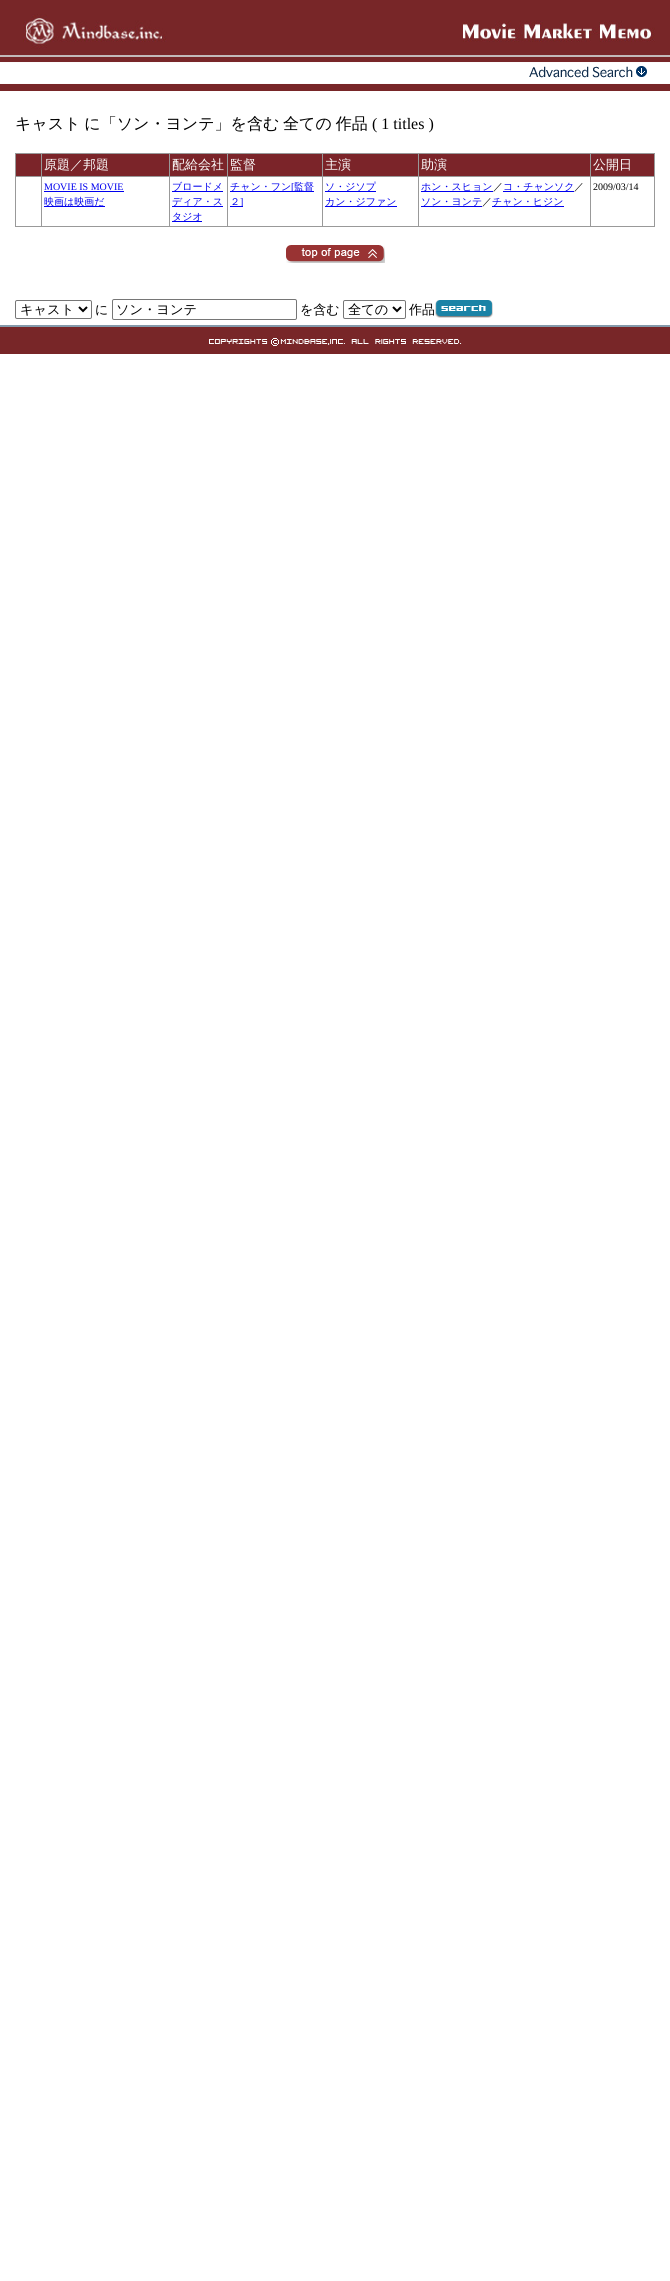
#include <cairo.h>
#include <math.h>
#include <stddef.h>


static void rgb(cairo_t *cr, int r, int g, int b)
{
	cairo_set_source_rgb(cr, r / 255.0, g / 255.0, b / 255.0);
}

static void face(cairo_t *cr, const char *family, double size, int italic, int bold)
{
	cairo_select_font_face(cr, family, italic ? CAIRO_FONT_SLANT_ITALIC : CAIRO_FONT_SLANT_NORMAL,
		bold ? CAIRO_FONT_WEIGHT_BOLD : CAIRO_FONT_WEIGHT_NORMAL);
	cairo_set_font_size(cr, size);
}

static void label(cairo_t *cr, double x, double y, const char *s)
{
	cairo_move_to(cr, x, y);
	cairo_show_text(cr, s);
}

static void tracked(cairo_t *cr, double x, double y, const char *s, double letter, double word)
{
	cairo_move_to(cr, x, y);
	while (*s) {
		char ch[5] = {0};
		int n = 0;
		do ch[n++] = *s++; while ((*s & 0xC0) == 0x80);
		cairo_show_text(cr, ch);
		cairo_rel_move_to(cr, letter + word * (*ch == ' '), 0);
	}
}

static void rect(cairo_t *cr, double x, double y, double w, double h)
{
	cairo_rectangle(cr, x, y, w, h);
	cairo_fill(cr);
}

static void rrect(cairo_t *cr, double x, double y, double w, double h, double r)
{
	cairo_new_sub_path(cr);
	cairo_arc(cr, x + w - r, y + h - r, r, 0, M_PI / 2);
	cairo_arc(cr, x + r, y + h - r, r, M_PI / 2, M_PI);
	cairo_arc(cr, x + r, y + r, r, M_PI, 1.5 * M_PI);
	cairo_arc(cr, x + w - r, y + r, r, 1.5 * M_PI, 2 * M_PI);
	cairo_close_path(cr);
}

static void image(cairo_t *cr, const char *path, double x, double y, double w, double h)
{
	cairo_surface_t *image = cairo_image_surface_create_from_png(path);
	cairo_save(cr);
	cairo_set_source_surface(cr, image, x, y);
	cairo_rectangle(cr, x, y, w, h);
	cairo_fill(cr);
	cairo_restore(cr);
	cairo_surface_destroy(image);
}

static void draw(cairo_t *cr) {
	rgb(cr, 255, 255, 255);
	cairo_paint(cr);
	rgb(cr, 120, 38, 40);
	rect(cr, 0, 0, 670, 53);
	image(cr, "image0.png", 23, 14, 632, 35);
	image(cr, "image1.png", 0, 53, 670, 38);
	image(cr, "image2.png", 529, 66, 118, 12);
	face(cr, "WenQuanYi Zen Hei Medium", 16, 0, 0);
	rgb(cr, 0, 0, 0);
	tracked(cr, 15, 129, "キャスト に「ソン・ヨンテ」を含む 全ての 作品", 0, -1);
	face(cr, "Liberation Serif", 16, 0, 0);
	label(cr, 372, 129, "( 1 titles )");
	rgb(cr, 153, 153, 153);
	rect(cr, 15, 153, 640, 74);
	rgb(cr, 123, 36, 41);
	rect(cr, 16, 154, 25, 22);
	rect(cr, 42, 154, 127, 22);
	face(cr, "WenQuanYi Zen Hei Medium", 13, 0, 0);
	rgb(cr, 255, 255, 255);
	label(cr, 44, 169, "原題／邦題");
	rgb(cr, 123, 36, 41);
	rect(cr, 170, 154, 57, 22);
	rgb(cr, 255, 255, 255);
	label(cr, 172, 169, "配給会社");
	rgb(cr, 123, 36, 41);
	rect(cr, 228, 154, 94, 22);
	rgb(cr, 255, 255, 255);
	label(cr, 230, 169, "監督");
	rgb(cr, 123, 36, 41);
	rect(cr, 323, 154, 95, 22);
	rgb(cr, 255, 255, 255);
	label(cr, 325, 169, "主演");
	rgb(cr, 123, 36, 41);
	rect(cr, 419, 154, 171, 22);
	rgb(cr, 255, 255, 255);
	label(cr, 421, 169, "助演");
	rgb(cr, 123, 36, 41);
	rect(cr, 591, 154, 63, 22);
	rgb(cr, 255, 255, 255);
	label(cr, 593, 169, "公開日");
	rect(cr, 16, 177, 25, 49);
	rect(cr, 42, 177, 127, 49);
	face(cr, "Liberation Serif", 10, 0, 0);
	rgb(cr, 0, 0, 238);
	label(cr, 44, 190, "MOVIE IS MOVIE");
	rect(cr, 44, 191, 80, 1);
	rect(cr, 44, 206, 61, 1);
	face(cr, "WenQuanYi Zen Hei Medium", 10, 0, 0);
	label(cr, 44, 205, "映画は映画だ");
	rgb(cr, 255, 255, 255);
	rect(cr, 170, 177, 57, 49);
	rgb(cr, 0, 0, 238);
	rect(cr, 172, 191, 51, 1);
	label(cr, 172, 190, "ブロードメ");
	rect(cr, 172, 206, 51, 1);
	label(cr, 172, 205, "ディア・ス");
	rect(cr, 172, 221, 30, 1);
	label(cr, 172, 220, "タジオ");
	rgb(cr, 255, 255, 255);
	rect(cr, 228, 177, 94, 49);
	rgb(cr, 0, 0, 238);
	rect(cr, 230, 191, 84, 1);
	label(cr, 230, 190, "チャン・フン");
	face(cr, "Liberation Serif", 10, 0, 0);
	label(cr, 291, 190, "[");
	face(cr, "WenQuanYi Zen Hei Medium", 10, 0, 0);
	label(cr, 294, 190, "監督");
	label(cr, 230, 205, "２");
	rect(cr, 230, 206, 13, 1);
	face(cr, "Liberation Serif", 10, 0, 0);
	label(cr, 240, 205, "]");
	rgb(cr, 255, 255, 255);
	rect(cr, 323, 177, 95, 49);
	rgb(cr, 0, 0, 238);
	rect(cr, 325, 191, 51, 1);
	face(cr, "WenQuanYi Zen Hei Medium", 10, 0, 0);
	label(cr, 325, 190, "ソ・ジソプ");
	label(cr, 325, 205, "カン・ジファン");
	rect(cr, 325, 206, 72, 1);
	rgb(cr, 255, 255, 255);
	rect(cr, 419, 177, 171, 49);
	rgb(cr, 0, 0, 238);
	label(cr, 421, 190, "ホン・スヒョン");
	rect(cr, 421, 191, 72, 1);
	rgb(cr, 0, 0, 0);
	label(cr, 493, 190, "／");
	rgb(cr, 0, 0, 238);
	rect(cr, 503, 191, 71, 1);
	label(cr, 503, 190, "コ・チャンソク");
	rgb(cr, 0, 0, 0);
	label(cr, 574, 190, "／");
	rgb(cr, 0, 0, 238);
	rect(cr, 421, 206, 61, 1);
	label(cr, 421, 205, "ソン・ヨンテ");
	rgb(cr, 0, 0, 0);
	label(cr, 482, 205, "／");
	rgb(cr, 0, 0, 238);
	rect(cr, 492, 206, 72, 1);
	label(cr, 492, 205, "チャン・ヒジン");
	rgb(cr, 255, 255, 255);
	rect(cr, 591, 177, 63, 49);
	face(cr, "Liberation Serif", 10, 0, 0);
	rgb(cr, 0, 0, 0);
	label(cr, 593, 190, "2009/03/14");
	image(cr, "image3.png", 286, 245, 99, 18);
	rrect(cr, 15.5, 300.5, 76, 18, 1.5);
	rgb(cr, 118, 118, 118);
	cairo_set_line_width(cr, 1);
	cairo_stroke(cr);
	cairo_new_path(cr);
	cairo_move_to(cr, 79, 307);
	cairo_line_to(cr, 83, 311);
	cairo_line_to(cr, 87, 307);
	rgb(cr, 0, 0, 0);
	cairo_set_line_width(cr, 2);
	cairo_stroke(cr);
	face(cr, "WenQuanYi Zen Hei Medium", 13.25, 0, 0);
	label(cr, 20, 314, "キャスト");
	face(cr, "WenQuanYi Zen Hei Medium", 13, 0, 0);
	label(cr, 95, 314, "に");
	rrect(cr, 112.5, 299.5, 184, 20, 1.5);
	rgb(cr, 118, 118, 118);
	cairo_set_line_width(cr, 1);
	cairo_stroke(cr);
	face(cr, "WenQuanYi Zen Hei Medium", 13.25, 0, 0);
	rgb(cr, 0, 0, 0);
	label(cr, 116, 314, "ソン・ヨンテ");
	face(cr, "WenQuanYi Zen Hei Medium", 13, 0, 0);
	label(cr, 300, 314, "を含む");
	rrect(cr, 343.5, 300.5, 62, 18, 1.5);
	rgb(cr, 118, 118, 118);
	cairo_stroke(cr);
	cairo_new_path(cr);
	cairo_move_to(cr, 393, 307);
	cairo_line_to(cr, 397, 311);
	cairo_line_to(cr, 401, 307);
	rgb(cr, 0, 0, 0);
	cairo_set_line_width(cr, 2);
	cairo_stroke(cr);
	face(cr, "WenQuanYi Zen Hei Medium", 13.25, 0, 0);
	label(cr, 348, 314, "全ての");
	face(cr, "WenQuanYi Zen Hei Medium", 13, 0, 0);
	label(cr, 409, 314, "作品");
	image(cr, "image4.png", 435, 300, 58, 18);
	image(cr, "image5.png", 0, 325, 670, 29);
	image(cr, "image6.png", 209, 338, 253, 8);
}

int main(void) {
	cairo_surface_t *surface = cairo_image_surface_create(CAIRO_FORMAT_RGB24, 670, 2281);
	cairo_t *cr = cairo_create(surface);
	cairo_font_options_t *options = cairo_font_options_create();
	cairo_font_options_set_hint_metrics(options, CAIRO_HINT_METRICS_OFF);
	cairo_font_options_set_hint_style(options, CAIRO_HINT_STYLE_NONE);
	cairo_set_font_options(cr, options);
	cairo_set_miter_limit(cr, 4);
	draw(cr);
	cairo_surface_write_to_png(surface, "render.png");
	cairo_font_options_destroy(options);
	cairo_destroy(cr);
	cairo_surface_destroy(surface);
	return 0;
}
